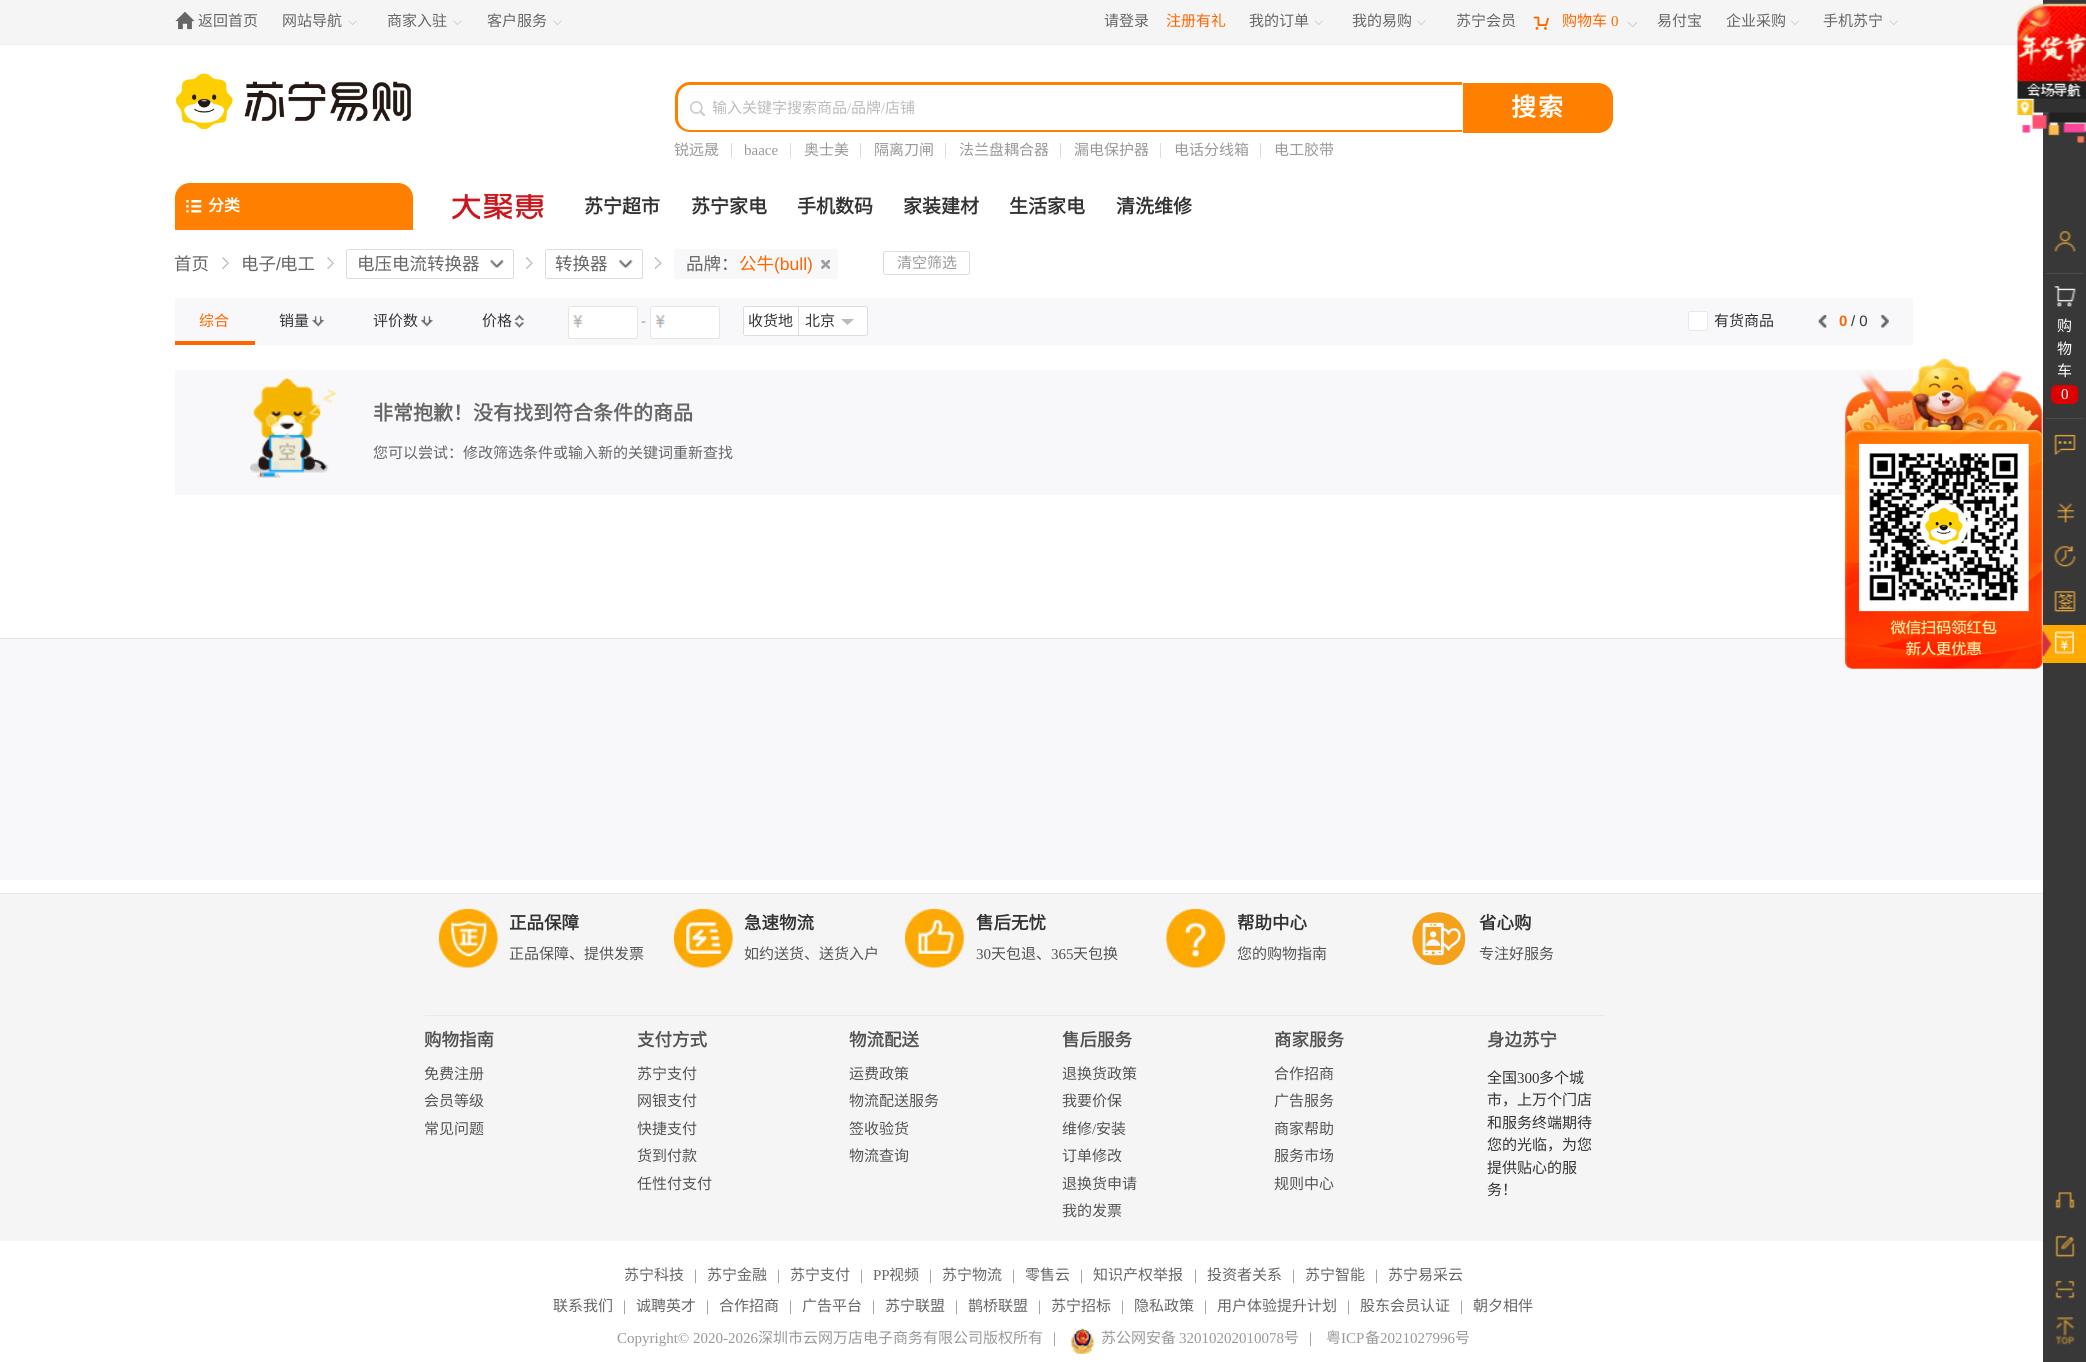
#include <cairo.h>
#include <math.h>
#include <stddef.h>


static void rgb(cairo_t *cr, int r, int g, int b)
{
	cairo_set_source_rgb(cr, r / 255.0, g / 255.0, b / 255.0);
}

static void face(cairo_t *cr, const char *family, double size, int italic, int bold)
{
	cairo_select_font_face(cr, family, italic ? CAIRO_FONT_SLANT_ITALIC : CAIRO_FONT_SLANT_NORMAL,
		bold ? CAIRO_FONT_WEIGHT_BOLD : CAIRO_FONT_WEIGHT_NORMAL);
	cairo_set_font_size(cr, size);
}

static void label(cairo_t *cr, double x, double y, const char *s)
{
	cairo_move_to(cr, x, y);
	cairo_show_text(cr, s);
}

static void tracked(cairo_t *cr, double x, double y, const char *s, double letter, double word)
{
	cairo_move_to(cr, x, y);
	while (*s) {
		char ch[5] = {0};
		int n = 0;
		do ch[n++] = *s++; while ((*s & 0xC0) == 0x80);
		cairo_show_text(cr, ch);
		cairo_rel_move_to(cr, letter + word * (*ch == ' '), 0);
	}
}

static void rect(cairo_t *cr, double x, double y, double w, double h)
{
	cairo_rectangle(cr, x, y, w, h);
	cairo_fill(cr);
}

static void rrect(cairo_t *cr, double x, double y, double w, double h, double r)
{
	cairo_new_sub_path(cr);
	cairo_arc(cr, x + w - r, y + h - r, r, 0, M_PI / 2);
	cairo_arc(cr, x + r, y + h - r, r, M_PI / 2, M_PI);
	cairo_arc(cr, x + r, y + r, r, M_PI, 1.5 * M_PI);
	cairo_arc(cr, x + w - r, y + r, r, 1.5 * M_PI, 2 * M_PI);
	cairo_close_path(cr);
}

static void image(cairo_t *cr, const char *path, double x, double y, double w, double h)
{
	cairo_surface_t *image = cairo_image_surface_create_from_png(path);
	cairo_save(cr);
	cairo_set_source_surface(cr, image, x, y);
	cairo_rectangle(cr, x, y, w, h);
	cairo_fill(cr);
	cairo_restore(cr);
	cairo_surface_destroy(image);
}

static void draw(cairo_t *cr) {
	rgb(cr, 255, 255, 255);
	cairo_paint(cr);
	rgb(cr, 245, 245, 245);
	rect(cr, 0, 0, 2043, 44);
	rgb(cr, 238, 238, 238);
	rect(cr, 0, 44, 2018, 1);
	image(cr, "image0.png", 175, 11, 20, 19);
	face(cr, "Noto Sans CJK SC", 15, 0, 0);
	rgb(cr, 102, 102, 102);
	label(cr, 198, 26, "返回首页");
	label(cr, 282, 26, "网站导航");
	image(cr, "image1.png", 348, 20, 9, 5);
	label(cr, 387, 26, "商家入驻");
	image(cr, "image1.png", 453, 20, 9, 5);
	label(cr, 487, 26, "客户服务");
	image(cr, "image1.png", 553, 20, 9, 5);
	label(cr, 1104, 26, "请登录");
	rgb(cr, 255, 102, 0);
	label(cr, 1166, 26, "注册有礼");
	rgb(cr, 102, 102, 102);
	label(cr, 1249, 26, "我的订单");
	image(cr, "image2.png", 1314, 20, 9, 5);
	label(cr, 1352, 26, "我的易购");
	image(cr, "image3.png", 1417, 20, 9, 5);
	label(cr, 1456, 26, "苏宁会员");
	image(cr, "image4.png", 1533, 16, 16, 14);
	rgb(cr, 255, 102, 0);
	label(cr, 1562, 26, "购物车");
	face(cr, "Liberation Serif", 15, 0, 0);
	label(cr, 1611, 26, "0");
	image(cr, "image5.png", 1627, 22, 11, 5);
	face(cr, "Noto Sans CJK SC", 15, 0, 0);
	rgb(cr, 102, 102, 102);
	label(cr, 1657, 26, "易付宝");
	label(cr, 1726, 26, "企业采购");
	image(cr, "image6.png", 1791, 20, 8, 5);
	label(cr, 1823, 26, "手机苏宁");
	image(cr, "image2.png", 1889, 20, 9, 5);
	image(cr, "image7.png", 175, 73, 236, 57);
	image(cr, "image8.png", 690, 101, 15, 15);
	rgb(cr, 255, 128, 0);
	cairo_set_fill_rule(cr, CAIRO_FILL_RULE_EVEN_ODD);
	cairo_new_path(cr);
	cairo_move_to(cr, 690, 82);
	cairo_line_to(cr, 1462, 82);
	cairo_line_to(cr, 1462, 132);
	cairo_line_to(cr, 690, 132);
	cairo_curve_to(cr, 682, 132, 675, 126, 675, 118);
	cairo_line_to(cr, 675, 98);
	cairo_curve_to(cr, 675, 89, 682, 82, 690, 82);
	cairo_close_path(cr);
	cairo_move_to(cr, 690, 85);
	cairo_line_to(cr, 1462, 85);
	cairo_line_to(cr, 1462, 130);
	cairo_line_to(cr, 690, 130);
	cairo_curve_to(cr, 683, 130, 678, 124, 678, 118);
	cairo_line_to(cr, 678, 98);
	cairo_curve_to(cr, 678, 91, 683, 85, 690, 85);
	cairo_close_path(cr);
	cairo_fill(cr);
	cairo_save(cr);
	cairo_set_fill_rule(cr, CAIRO_FILL_RULE_WINDING);
	cairo_rectangle(cr, 713, 96, 737, 23);
	cairo_clip(cr);
	rgb(cr, 187, 187, 187);
	label(cr, 712, 113, "输入关键字搜索商品");
	cairo_restore(cr);
	face(cr, "Liberation Serif", 15, 0, 0);
	rgb(cr, 187, 187, 187);
	label(cr, 847, 113, "/");
	face(cr, "Noto Sans CJK SC", 15, 0, 0);
	label(cr, 851, 113, "品牌");
	face(cr, "Liberation Serif", 15, 0, 0);
	label(cr, 881, 113, "/");
	face(cr, "Noto Sans CJK SC", 15, 0, 0);
	label(cr, 885, 113, "店铺");
	rgb(cr, 255, 128, 0);
	cairo_new_path(cr);
	cairo_move_to(cr, 1463, 83);
	cairo_line_to(cr, 1598, 83);
	cairo_curve_to(cr, 1606.5, 83, 1613, 89.5, 1613, 98);
	cairo_line_to(cr, 1613, 118);
	cairo_curve_to(cr, 1613, 126.5, 1606.5, 133, 1598, 133);
	cairo_line_to(cr, 1463, 133);
	cairo_close_path(cr);
	cairo_fill(cr);
	face(cr, "Noto Sans CJK SC", 25, 0, 1);
	rgb(cr, 255, 255, 255);
	tracked(cr, 1511, 116, "搜索", 2, 0);
	face(cr, "Noto Sans CJK SC", 15, 0, 0);
	rgb(cr, 153, 153, 153);
	label(cr, 674, 155, "锐远晟");
	rgb(cr, 221, 221, 221);
	rect(cr, 731, 143, 1, 15);
	face(cr, "Liberation Serif", 15, 0, 0);
	rgb(cr, 153, 153, 153);
	label(cr, 744, 155, "baace");
	rgb(cr, 221, 221, 221);
	rect(cr, 790, 143, 1, 15);
	face(cr, "Noto Sans CJK SC", 15, 0, 0);
	rgb(cr, 153, 153, 153);
	label(cr, 804, 155, "奥士美");
	rgb(cr, 221, 221, 221);
	rect(cr, 860, 143, 1, 15);
	rgb(cr, 153, 153, 153);
	label(cr, 874, 155, "隔离刀闸");
	rgb(cr, 221, 221, 221);
	rect(cr, 945, 143, 1, 15);
	rgb(cr, 153, 153, 153);
	label(cr, 959, 155, "法兰盘耦合器");
	rgb(cr, 221, 221, 221);
	rect(cr, 1060, 143, 1, 15);
	rgb(cr, 153, 153, 153);
	label(cr, 1074, 155, "漏电保护器");
	rgb(cr, 221, 221, 221);
	rect(cr, 1160, 143, 1, 15);
	rgb(cr, 153, 153, 153);
	label(cr, 1174, 155, "电话分线箱");
	rgb(cr, 221, 221, 221);
	rect(cr, 1260, 143, 1, 15);
	rgb(cr, 153, 153, 153);
	label(cr, 1274, 155, "电工胶带");
	rgb(cr, 255, 128, 0);
	cairo_new_path(cr);
	cairo_move_to(cr, 190, 183);
	cairo_line_to(cr, 398, 183);
	cairo_curve_to(cr, 406.5, 183, 413, 189.5, 413, 198);
	cairo_line_to(cr, 413, 230);
	cairo_line_to(cr, 175, 230);
	cairo_line_to(cr, 175, 198);
	cairo_curve_to(cr, 175, 189.5, 181.5, 183, 190, 183);
	cairo_close_path(cr);
	cairo_fill(cr);
	image(cr, "image9.png", 186, 200, 16, 13);
	face(cr, "Noto Sans CJK SC", 16, 0, 1);
	rgb(cr, 255, 255, 255);
	label(cr, 208, 211, "分类");
	image(cr, "image10.png", 452, 193, 92, 27);
	face(cr, "Noto Sans CJK SC", 19, 0, 1);
	rgb(cr, 51, 51, 51);
	label(cr, 584, 213, "苏宁超市");
	label(cr, 691, 213, "苏宁家电");
	label(cr, 797, 213, "手机数码");
	label(cr, 903, 213, "家装建材");
	label(cr, 1009, 213, "生活家电");
	label(cr, 1116, 213, "清洗维修");
	face(cr, "Noto Sans CJK SC", 17.5, 0, 0);
	rgb(cr, 102, 102, 102);
	label(cr, 174, 270, "首页");
	image(cr, "image11.png", 222, 257, 7, 12);
	label(cr, 241, 270, "电子");
	face(cr, "Liberation Sans", 17.5, 0, 0);
	label(cr, 276, 270, "/");
	face(cr, "Noto Sans CJK SC", 17.5, 0, 0);
	label(cr, 280, 270, "电工");
	image(cr, "image11.png", 327, 257, 7, 12);
	rrect(cr, 346.5, 249.5, 167, 29, 2);
	rgb(cr, 221, 221, 221);
	cairo_set_line_width(cr, 1);
	cairo_stroke(cr);
	rgb(cr, 102, 102, 102);
	label(cr, 357, 270, "电压电流转换器");
	image(cr, "image12.png", 490, 260, 14, 8);
	rgb(cr, 221, 221, 221);
	cairo_set_fill_rule(cr, CAIRO_FILL_RULE_WINDING);
	cairo_new_path(cr);
	cairo_move_to(cr, 514, 278);
	cairo_line_to(cr, 346, 278);
	cairo_line_to(cr, 348, 279);
	cairo_line_to(cr, 512, 279);
	cairo_close_path(cr);
	cairo_fill(cr);
	image(cr, "image13.png", 526, 257, 7, 12);
	rrect(cr, 545.5, 249.5, 97, 29, 2);
	cairo_stroke(cr);
	rgb(cr, 102, 102, 102);
	label(cr, 555, 270, "转换器");
	image(cr, "image14.png", 618, 260, 15, 8);
	rgb(cr, 221, 221, 221);
	cairo_new_path(cr);
	cairo_move_to(cr, 643, 278);
	cairo_line_to(cr, 545, 278);
	cairo_line_to(cr, 547, 279);
	cairo_line_to(cr, 641, 279);
	cairo_close_path(cr);
	cairo_fill(cr);
	image(cr, "image15.png", 655, 257, 7, 12);
	rgb(cr, 248, 248, 250);
	rrect(cr, 674, 249, 164, 30, 2.5);
	cairo_fill(cr);
	rgb(cr, 102, 102, 102);
	label(cr, 686, 270, "品牌：");
	rgb(cr, 255, 102, 0);
	label(cr, 739, 270, "公牛");
	face(cr, "Liberation Sans", 17.5, 0, 0);
	label(cr, 774, 270, "(bull)");
	image(cr, "image16.png", 821, 260, 9, 9);
	rrect(cr, 883.5, 251.5, 86, 23, 2);
	rgb(cr, 221, 221, 221);
	cairo_stroke(cr);
	face(cr, "Noto Sans CJK SC", 15, 0, 0);
	rgb(cr, 153, 153, 153);
	label(cr, 897, 268, "清空筛选");
	rgb(cr, 248, 248, 250);
	rect(cr, 175, 298, 1738, 47);
	rgb(cr, 255, 102, 0);
	label(cr, 199, 326, "综合");
	rgb(cr, 51, 51, 51);
	label(cr, 279, 326, "销量");
	image(cr, "image17.png", 312, 316, 12, 11);
	label(cr, 373, 326, "评价数");
	image(cr, "image18.png", 421, 316, 12, 11);
	label(cr, 482, 326, "价格");
	image(cr, "image19.png", 515, 315, 9, 13);
	rgb(cr, 255, 102, 0);
	rect(cr, 175, 341, 80, 4);
	rgb(cr, 255, 255, 255);
	rrect(cr, 568, 306, 70, 33, 2.5);
	cairo_fill(cr);
	image(cr, "image20.png", 573, 315, 10, 13);
	rrect(cr, 568.5, 306.5, 69, 32, 2);
	rgb(cr, 229, 229, 229);
	cairo_stroke(cr);
	face(cr, "Liberation Sans", 15, 0, 0);
	rgb(cr, 153, 153, 153);
	label(cr, 641, 326, "-");
	rgb(cr, 255, 255, 255);
	rrect(cr, 650, 306, 70, 33, 2.5);
	cairo_fill(cr);
	image(cr, "image21.png", 656, 315, 10, 13);
	rrect(cr, 650.5, 306.5, 69, 32, 2);
	rgb(cr, 229, 229, 229);
	cairo_stroke(cr);
	rgb(cr, 255, 255, 255);
	cairo_new_path(cr);
	cairo_move_to(cr, 745.5, 306.5);
	cairo_line_to(cr, 798.5, 306.5);
	cairo_line_to(cr, 798.5, 335.5);
	cairo_line_to(cr, 745.5, 335.5);
	cairo_curve_to(cr, 744.5, 335.5, 743.5, 334.5, 743.5, 333.5);
	cairo_line_to(cr, 743.5, 308.5);
	cairo_curve_to(cr, 743.5, 307.5, 744.5, 306.5, 745.5, 306.5);
	cairo_close_path(cr);
	cairo_fill_preserve(cr);
	rgb(cr, 221, 221, 221);
	cairo_stroke(cr);
	face(cr, "Noto Sans CJK SC", 15, 0, 0);
	rgb(cr, 51, 51, 51);
	label(cr, 748, 326, "收货地");
	rgb(cr, 255, 255, 255);
	cairo_new_path(cr);
	cairo_move_to(cr, 798.5, 306.5);
	cairo_line_to(cr, 865.5, 306.5);
	cairo_curve_to(cr, 866.5, 306.5, 867.5, 307.5, 867.5, 308.5);
	cairo_line_to(cr, 867.5, 333.5);
	cairo_curve_to(cr, 867.5, 334.5, 866.5, 335.5, 865.5, 335.5);
	cairo_line_to(cr, 798.5, 335.5);
	cairo_close_path(cr);
	cairo_fill_preserve(cr);
	rgb(cr, 221, 221, 221);
	cairo_stroke(cr);
	rgb(cr, 51, 51, 51);
	label(cr, 805, 326, "北京");
	rgb(cr, 187, 187, 187);
	cairo_new_path(cr);
	cairo_move_to(cr, 841, 319);
	cairo_line_to(cr, 854, 319);
	cairo_line_to(cr, 847.5, 325);
	cairo_close_path(cr);
	cairo_fill(cr);
	rgb(cr, 255, 255, 255);
	rrect(cr, 1688.5, 311.5, 19, 19, 2);
	cairo_fill_preserve(cr);
	rgb(cr, 232, 232, 232);
	cairo_stroke(cr);
	rgb(cr, 51, 51, 51);
	label(cr, 1714, 326, "有货商品");
	image(cr, "image22.png", 1818, 314, 9, 14);
	face(cr, "Liberation Sans", 15, 0, 1);
	rgb(cr, 255, 102, 0);
	label(cr, 1839, 326, "0");
	face(cr, "Liberation Sans", 15, 0, 0);
	rgb(cr, 51, 51, 51);
	label(cr, 1851, 326, "/ 0");
	image(cr, "image23.png", 1881, 314, 8, 14);
	rgb(cr, 56, 56, 56);
	rect(cr, 2043, 0, 43, 1362);
	image(cr, "image24.png", 2017, 3, 69, 140);
	rgb(cr, 248, 248, 250);
	rect(cr, 175, 370, 1738, 125);
	rect(cr, 0, 639, 2043, 241);
	rgb(cr, 228, 228, 228);
	rect(cr, 0, 638, 2043, 1);
	image(cr, "image25.png", 1845, 358, 198, 311);
	image(cr, "image26.png", 2054, 231, 22, 21);
	rgb(cr, 77, 77, 77);
	rect(cr, 2046, 273, 37, 1);
	rect(cr, 2046, 418, 37, 1);
	image(cr, "image27.png", 2054, 286, 22, 21);
	face(cr, "Noto Sans CJK SC", 15, 0, 0);
	rgb(cr, 255, 255, 255);
	label(cr, 2057, 331, "购");
	label(cr, 2057, 354, "物");
	label(cr, 2057, 376, "车");
	rgb(cr, 221, 0, 0);
	rrect(cr, 2051, 385, 27, 19, 6);
	cairo_fill(cr);
	face(cr, "Liberation Serif", 15, 0, 0);
	rgb(cr, 255, 255, 255);
	label(cr, 2061, 399, "0");
	image(cr, "image28.png", 2054, 434, 22, 22);
	image(cr, "image29.png", 2057, 503, 18, 20);
	image(cr, "image30.png", 2054, 546, 22, 21);
	image(cr, "image31.png", 2054, 591, 22, 21);
	rgb(cr, 255, 170, 1);
	rect(cr, 2043, 625, 43, 38);
	image(cr, "image32.png", 2054, 631, 20, 23);
	image(cr, "image33.png", 2042, 631, 10, 26);
	image(cr, "image34.png", 2055, 1192, 20, 17);
	image(cr, "image35.png", 2055, 1235, 20, 23);
	image(cr, "image36.png", 2055, 1280, 20, 19);
	image(cr, "image37.png", 2055, 1317, 20, 28);
	image(cr, "image38.png", 250, 378, 87, 100);
	face(cr, "Noto Sans CJK SC", 20, 0, 1);
	rgb(cr, 102, 102, 102);
	label(cr, 373, 420, "非常抱歉！没有找到符合条件的商品");
	face(cr, "Noto Sans CJK SC", 15, 0, 0);
	label(cr, 373, 458, "您可以尝试：修改筛选条件或输入新的关键词重新查找");
	rgb(cr, 245, 245, 245);
	rect(cr, 0, 894, 2043, 347);
	rgb(cr, 231, 231, 231);
	rect(cr, 0, 893, 2043, 1);
	rgb(cr, 234, 234, 234);
	rect(cr, 425, 1015, 1180, 1);
	image(cr, "image39.png", 438, 908, 61, 61);
	face(cr, "Noto Sans CJK SC", 17.5, 0, 1);
	rgb(cr, 51, 51, 51);
	label(cr, 509, 929, "正品保障");
	face(cr, "Noto Sans CJK SC", 15, 0, 0);
	rgb(cr, 84, 84, 84);
	label(cr, 509, 959, "正品保障、提供发票");
	image(cr, "image40.png", 673, 908, 61, 61);
	face(cr, "Noto Sans CJK SC", 17.5, 0, 1);
	rgb(cr, 51, 51, 51);
	label(cr, 744, 929, "急速物流");
	face(cr, "Noto Sans CJK SC", 15, 0, 0);
	rgb(cr, 84, 84, 84);
	label(cr, 744, 959, "如约送货、送货入户");
	image(cr, "image41.png", 905, 908, 60, 61);
	face(cr, "Noto Sans CJK SC", 17.5, 0, 1);
	rgb(cr, 51, 51, 51);
	label(cr, 976, 929, "售后无忧");
	face(cr, "Liberation Serif", 15, 0, 0);
	rgb(cr, 84, 84, 84);
	label(cr, 976, 959, "30");
	face(cr, "Noto Sans CJK SC", 15, 0, 0);
	label(cr, 991, 959, "天包退、");
	face(cr, "Liberation Serif", 15, 0, 0);
	label(cr, 1051, 959, "365");
	face(cr, "Noto Sans CJK SC", 15, 0, 0);
	label(cr, 1073, 959, "天包换");
	image(cr, "image42.png", 1166, 908, 61, 61);
	face(cr, "Noto Sans CJK SC", 17.5, 0, 1);
	rgb(cr, 51, 51, 51);
	label(cr, 1237, 929, "帮助中心");
	face(cr, "Noto Sans CJK SC", 15, 0, 0);
	rgb(cr, 84, 84, 84);
	label(cr, 1237, 959, "您的购物指南");
	image(cr, "image43.png", 1412, 912, 54, 53);
	face(cr, "Noto Sans CJK SC", 17.5, 0, 1);
	rgb(cr, 51, 51, 51);
	label(cr, 1479, 929, "省心购");
	face(cr, "Noto Sans CJK SC", 15, 0, 0);
	rgb(cr, 84, 84, 84);
	label(cr, 1479, 959, "专注好服务");
	face(cr, "Noto Sans CJK SC", 17.5, 0, 1);
	label(cr, 424, 1046, "购物指南");
	face(cr, "Noto Sans CJK SC", 15, 0, 0);
	label(cr, 424, 1079, "免费注册");
	label(cr, 424, 1106, "会员等级");
	label(cr, 424, 1134, "常见问题");
	face(cr, "Noto Sans CJK SC", 17.5, 0, 1);
	label(cr, 637, 1046, "支付方式");
	face(cr, "Noto Sans CJK SC", 15, 0, 0);
	label(cr, 637, 1079, "苏宁支付");
	label(cr, 637, 1106, "网银支付");
	label(cr, 637, 1134, "快捷支付");
	label(cr, 637, 1161, "货到付款");
	label(cr, 637, 1189, "任性付支付");
	face(cr, "Noto Sans CJK SC", 17.5, 0, 1);
	label(cr, 849, 1046, "物流配送");
	face(cr, "Noto Sans CJK SC", 15, 0, 0);
	label(cr, 849, 1079, "运费政策");
	label(cr, 849, 1106, "物流配送服务");
	label(cr, 849, 1134, "签收验货");
	label(cr, 849, 1161, "物流查询");
	face(cr, "Noto Sans CJK SC", 17.5, 0, 1);
	label(cr, 1062, 1046, "售后服务");
	face(cr, "Noto Sans CJK SC", 15, 0, 0);
	label(cr, 1062, 1079, "退换货政策");
	label(cr, 1062, 1106, "我要价保");
	label(cr, 1062, 1134, "维修");
	face(cr, "Liberation Serif", 15, 0, 0);
	label(cr, 1092, 1134, "/");
	face(cr, "Noto Sans CJK SC", 15, 0, 0);
	label(cr, 1096, 1134, "安装");
	label(cr, 1062, 1161, "订单修改");
	label(cr, 1062, 1189, "退换货申请");
	label(cr, 1062, 1216, "我的发票");
	face(cr, "Noto Sans CJK SC", 17.5, 0, 1);
	label(cr, 1274, 1046, "商家服务");
	face(cr, "Noto Sans CJK SC", 15, 0, 0);
	label(cr, 1274, 1079, "合作招商");
	label(cr, 1274, 1106, "广告服务");
	label(cr, 1274, 1134, "商家帮助");
	label(cr, 1274, 1161, "服务市场");
	label(cr, 1274, 1189, "规则中心");
	face(cr, "Noto Sans CJK SC", 17.5, 0, 1);
	label(cr, 1487, 1046, "身边苏宁");
	face(cr, "Noto Sans CJK SC", 15, 0, 0);
	rgb(cr, 51, 51, 51);
	label(cr, 1487, 1083, "全国");
	face(cr, "Liberation Serif", 15, 0, 0);
	label(cr, 1517, 1083, "300");
	face(cr, "Noto Sans CJK SC", 15, 0, 0);
	label(cr, 1539, 1083, "多个城");
	label(cr, 1487, 1105, "市，上万个门店");
	label(cr, 1487, 1128, "和服务终端期待");
	label(cr, 1487, 1150, "您的光临，为您");
	label(cr, 1487, 1173, "提供贴心的服");
	label(cr, 1487, 1195, "务！");
	rgb(cr, 102, 102, 102);
	label(cr, 624, 1280, "苏宁科技");
	face(cr, "Liberation Serif", 15, 0, 0);
	rgb(cr, 136, 136, 136);
	label(cr, 694, 1280, "|");
	face(cr, "Noto Sans CJK SC", 15, 0, 0);
	rgb(cr, 102, 102, 102);
	label(cr, 707, 1280, "苏宁金融");
	face(cr, "Liberation Serif", 15, 0, 0);
	rgb(cr, 136, 136, 136);
	label(cr, 777, 1280, "|");
	face(cr, "Noto Sans CJK SC", 15, 0, 0);
	rgb(cr, 102, 102, 102);
	label(cr, 790, 1280, "苏宁支付");
	face(cr, "Liberation Serif", 15, 0, 0);
	rgb(cr, 136, 136, 136);
	label(cr, 860, 1280, "|");
	rgb(cr, 102, 102, 102);
	label(cr, 873, 1280, "PP");
	face(cr, "Noto Sans CJK SC", 15, 0, 0);
	label(cr, 889, 1280, "视频");
	face(cr, "Liberation Serif", 15, 0, 0);
	rgb(cr, 136, 136, 136);
	label(cr, 929, 1280, "|");
	face(cr, "Noto Sans CJK SC", 15, 0, 0);
	rgb(cr, 102, 102, 102);
	label(cr, 942, 1280, "苏宁物流");
	face(cr, "Liberation Serif", 15, 0, 0);
	rgb(cr, 136, 136, 136);
	label(cr, 1012, 1280, "|");
	face(cr, "Noto Sans CJK SC", 15, 0, 0);
	rgb(cr, 102, 102, 102);
	label(cr, 1025, 1280, "零售云");
	face(cr, "Liberation Serif", 15, 0, 0);
	rgb(cr, 136, 136, 136);
	label(cr, 1080, 1280, "|");
	face(cr, "Noto Sans CJK SC", 15, 0, 0);
	rgb(cr, 102, 102, 102);
	label(cr, 1093, 1280, "知识产权举报");
	face(cr, "Liberation Serif", 15, 0, 0);
	rgb(cr, 136, 136, 136);
	label(cr, 1194, 1280, "|");
	face(cr, "Noto Sans CJK SC", 15, 0, 0);
	rgb(cr, 102, 102, 102);
	label(cr, 1207, 1280, "投资者关系");
	face(cr, "Liberation Serif", 15, 0, 0);
	rgb(cr, 136, 136, 136);
	label(cr, 1292, 1280, "|");
	face(cr, "Noto Sans CJK SC", 15, 0, 0);
	rgb(cr, 102, 102, 102);
	label(cr, 1305, 1280, "苏宁智能");
	face(cr, "Liberation Serif", 15, 0, 0);
	rgb(cr, 136, 136, 136);
	label(cr, 1375, 1280, "|");
	face(cr, "Noto Sans CJK SC", 15, 0, 0);
	rgb(cr, 102, 102, 102);
	label(cr, 1388, 1280, "苏宁易采云");
	label(cr, 553, 1311, "联系我们");
	face(cr, "Liberation Serif", 15, 0, 0);
	rgb(cr, 136, 136, 136);
	label(cr, 623, 1311, "|");
	face(cr, "Noto Sans CJK SC", 15, 0, 0);
	rgb(cr, 102, 102, 102);
	label(cr, 636, 1311, "诚聘英才");
	face(cr, "Liberation Serif", 15, 0, 0);
	rgb(cr, 136, 136, 136);
	label(cr, 706, 1311, "|");
	face(cr, "Noto Sans CJK SC", 15, 0, 0);
	rgb(cr, 102, 102, 102);
	label(cr, 719, 1311, "合作招商");
	face(cr, "Liberation Serif", 15, 0, 0);
	rgb(cr, 136, 136, 136);
	label(cr, 789, 1311, "|");
	face(cr, "Noto Sans CJK SC", 15, 0, 0);
	rgb(cr, 102, 102, 102);
	label(cr, 802, 1311, "广告平台");
	face(cr, "Liberation Serif", 15, 0, 0);
	rgb(cr, 136, 136, 136);
	label(cr, 872, 1311, "|");
	face(cr, "Noto Sans CJK SC", 15, 0, 0);
	rgb(cr, 102, 102, 102);
	label(cr, 885, 1311, "苏宁联盟");
	face(cr, "Liberation Serif", 15, 0, 0);
	rgb(cr, 136, 136, 136);
	label(cr, 955, 1311, "|");
	face(cr, "Noto Sans CJK SC", 15, 0, 0);
	rgb(cr, 102, 102, 102);
	label(cr, 968, 1311, "鹊桥联盟");
	face(cr, "Liberation Serif", 15, 0, 0);
	rgb(cr, 136, 136, 136);
	label(cr, 1038, 1311, "|");
	face(cr, "Noto Sans CJK SC", 15, 0, 0);
	rgb(cr, 102, 102, 102);
	label(cr, 1051, 1311, "苏宁招标");
	face(cr, "Liberation Serif", 15, 0, 0);
	rgb(cr, 136, 136, 136);
	label(cr, 1121, 1311, "|");
	face(cr, "Noto Sans CJK SC", 15, 0, 0);
	rgb(cr, 102, 102, 102);
	label(cr, 1134, 1311, "隐私政策");
	face(cr, "Liberation Serif", 15, 0, 0);
	rgb(cr, 136, 136, 136);
	label(cr, 1204, 1311, "|");
	face(cr, "Noto Sans CJK SC", 15, 0, 0);
	rgb(cr, 102, 102, 102);
	label(cr, 1217, 1311, "用户体验提升计划");
	face(cr, "Liberation Serif", 15, 0, 0);
	rgb(cr, 136, 136, 136);
	label(cr, 1347, 1311, "|");
	face(cr, "Noto Sans CJK SC", 15, 0, 0);
	rgb(cr, 102, 102, 102);
	label(cr, 1360, 1311, "股东会员认证");
	face(cr, "Liberation Serif", 15, 0, 0);
	rgb(cr, 136, 136, 136);
	label(cr, 1460, 1311, "|");
	face(cr, "Noto Sans CJK SC", 15, 0, 0);
	rgb(cr, 102, 102, 102);
	label(cr, 1473, 1311, "朝夕相伴");
	face(cr, "Liberation Serif", 15, 0, 0);
	rgb(cr, 153, 153, 153);
	label(cr, 617, 1343, "Copyright© 2020-2026");
	face(cr, "Noto Sans CJK SC", 15, 0, 0);
	label(cr, 758, 1343, "深圳市云网万店电子商务有限公司版权所有");
	face(cr, "Liberation Serif", 15, 0, 0);
	rgb(cr, 136, 136, 136);
	label(cr, 1053, 1343, "|");
	image(cr, "image44.png", 1071, 1328, 23, 26);
	face(cr, "Noto Sans CJK SC", 15, 0, 0);
	rgb(cr, 153, 153, 153);
	label(cr, 1101, 1343, "苏公网安备");
	face(cr, "Liberation Serif", 15, 0, 0);
	label(cr, 1179, 1343, "32010202010078");
	face(cr, "Noto Sans CJK SC", 15, 0, 0);
	label(cr, 1284, 1343, "号");
	face(cr, "Liberation Serif", 15, 0, 0);
	rgb(cr, 136, 136, 136);
	label(cr, 1309, 1343, "|");
	face(cr, "Noto Sans CJK SC", 15, 0, 0);
	rgb(cr, 153, 153, 153);
	label(cr, 1326, 1343, "粤");
	face(cr, "Liberation Serif", 15, 0, 0);
	label(cr, 1341, 1343, "ICP");
	face(cr, "Noto Sans CJK SC", 15, 0, 0);
	label(cr, 1365, 1343, "备");
	face(cr, "Liberation Serif", 15, 0, 0);
	label(cr, 1380, 1343, "2021027996");
	face(cr, "Noto Sans CJK SC", 15, 0, 0);
	label(cr, 1455, 1343, "号");
}

int main(void) {
	cairo_surface_t *surface = cairo_image_surface_create(CAIRO_FORMAT_RGB24, 2086, 1362);
	cairo_t *cr = cairo_create(surface);
	cairo_font_options_t *options = cairo_font_options_create();
	cairo_font_options_set_hint_metrics(options, CAIRO_HINT_METRICS_OFF);
	cairo_font_options_set_hint_style(options, CAIRO_HINT_STYLE_NONE);
	cairo_set_font_options(cr, options);
	cairo_set_miter_limit(cr, 4);
	draw(cr);
	cairo_surface_write_to_png(surface, "render.png");
	cairo_font_options_destroy(options);
	cairo_destroy(cr);
	cairo_surface_destroy(surface);
	return 0;
}
